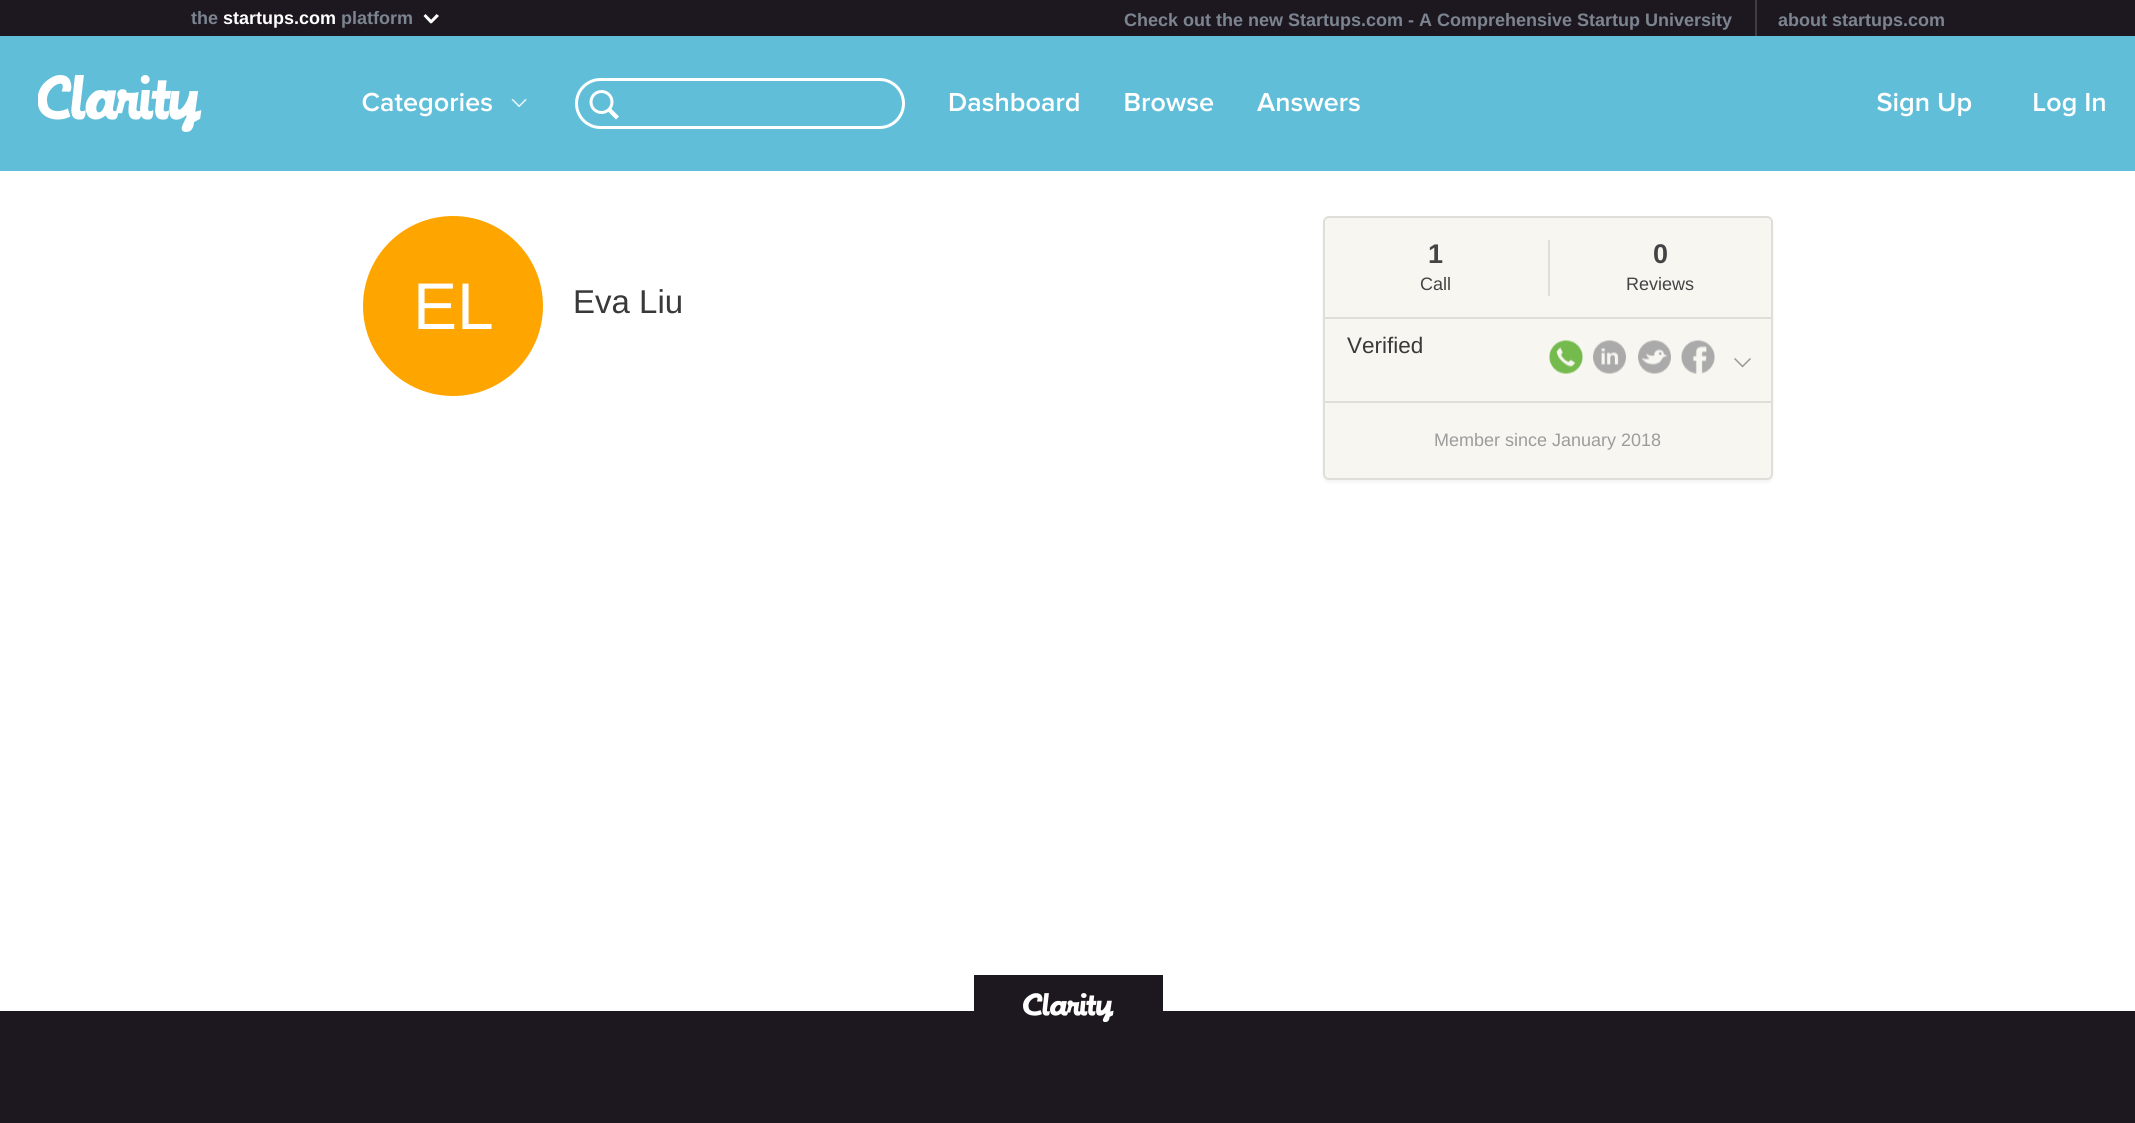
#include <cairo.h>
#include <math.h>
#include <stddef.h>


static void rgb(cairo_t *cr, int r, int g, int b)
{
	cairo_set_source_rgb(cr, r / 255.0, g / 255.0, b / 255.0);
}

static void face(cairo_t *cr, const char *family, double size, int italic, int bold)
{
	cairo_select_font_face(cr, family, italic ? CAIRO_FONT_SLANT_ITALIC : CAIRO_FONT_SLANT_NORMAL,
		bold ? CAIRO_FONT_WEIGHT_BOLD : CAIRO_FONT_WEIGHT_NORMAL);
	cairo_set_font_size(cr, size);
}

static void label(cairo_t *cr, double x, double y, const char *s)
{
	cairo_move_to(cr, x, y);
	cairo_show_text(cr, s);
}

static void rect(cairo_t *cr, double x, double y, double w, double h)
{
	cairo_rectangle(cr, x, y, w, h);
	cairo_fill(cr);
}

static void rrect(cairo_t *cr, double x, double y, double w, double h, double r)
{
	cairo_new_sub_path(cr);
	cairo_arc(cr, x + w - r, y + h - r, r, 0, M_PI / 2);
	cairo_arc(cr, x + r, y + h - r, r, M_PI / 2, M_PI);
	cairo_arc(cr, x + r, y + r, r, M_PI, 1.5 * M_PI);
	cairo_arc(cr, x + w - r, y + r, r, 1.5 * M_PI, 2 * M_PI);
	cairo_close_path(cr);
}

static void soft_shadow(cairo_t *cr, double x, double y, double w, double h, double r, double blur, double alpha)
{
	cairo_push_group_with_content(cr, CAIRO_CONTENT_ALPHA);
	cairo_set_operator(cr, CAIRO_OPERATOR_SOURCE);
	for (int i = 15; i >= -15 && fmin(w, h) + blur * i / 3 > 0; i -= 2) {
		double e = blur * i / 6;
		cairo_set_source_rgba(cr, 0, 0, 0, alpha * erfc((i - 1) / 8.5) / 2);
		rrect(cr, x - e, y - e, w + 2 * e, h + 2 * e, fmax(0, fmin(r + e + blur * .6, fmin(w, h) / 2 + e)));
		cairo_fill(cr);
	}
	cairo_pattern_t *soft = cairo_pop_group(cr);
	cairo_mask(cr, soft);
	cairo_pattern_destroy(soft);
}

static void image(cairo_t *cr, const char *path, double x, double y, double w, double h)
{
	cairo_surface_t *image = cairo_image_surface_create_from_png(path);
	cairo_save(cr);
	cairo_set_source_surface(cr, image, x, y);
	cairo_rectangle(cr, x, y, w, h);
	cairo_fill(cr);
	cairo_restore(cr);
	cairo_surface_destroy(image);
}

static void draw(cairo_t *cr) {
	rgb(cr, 255, 255, 255);
	cairo_paint(cr);
	rgb(cr, 29, 24, 31);
	rect(cr, 0, 0, 2135, 36);
	face(cr, "Liberation Sans", 18, 0, 1);
	rgb(cr, 123, 132, 144);
	label(cr, 191, 24, "the");
	rgb(cr, 255, 255, 255);
	label(cr, 223, 24, "startups.com");
	rgb(cr, 123, 132, 144);
	label(cr, 341, 24, "platform");
	rgb(cr, 255, 255, 255);
	cairo_new_path(cr);
	cairo_move_to(cr, 433, 21.5);
	cairo_line_to(cr, 430.5, 23.5);
	cairo_line_to(cr, 423.5, 16);
	cairo_line_to(cr, 425.5, 14);
	cairo_close_path(cr);
	cairo_fill(cr);
	cairo_new_path(cr);
	cairo_move_to(cr, 431.5, 23.5);
	cairo_line_to(cr, 429.5, 21.5);
	cairo_line_to(cr, 436.5, 14);
	cairo_line_to(cr, 439, 16);
	cairo_close_path(cr);
	cairo_fill(cr);
	rgb(cr, 62, 61, 71);
	rect(cr, 1755, 0, 2, 36);
	rgb(cr, 123, 132, 144);
	label(cr, 1124, 26, "Check out the new Startups.com - A Comprehensive Startup University");
	label(cr, 1778, 26, "about startups.com");
	rgb(cr, 97, 190, 217);
	rect(cr, 0, 36, 2135, 135);
	image(cr, "image0.png", 38, 75, 164, 57);
	image(cr, "image1.png", 362, 92, 130, 25);
	image(cr, "image2.png", 511, 98, 16, 10);
	rrect(cr, 576.5, 79.5, 327, 48, 24);
	rgb(cr, 255, 255, 255);
	cairo_set_line_width(cr, 3);
	cairo_stroke(cr);
	cairo_arc(cr, 601.5, 102, 10.5, 0, 2 * M_PI);
	cairo_stroke(cr);
	cairo_set_fill_rule(cr, CAIRO_FILL_RULE_EVEN_ODD);
	cairo_new_path(cr);
	cairo_move_to(cr, 607.5, 111);
	cairo_line_to(cr, 610.5, 108);
	cairo_line_to(cr, 619, 116.5);
	cairo_line_to(cr, 616, 119.5);
	cairo_close_path(cr);
	cairo_fill(cr);
	image(cr, "image3.png", 949, 93, 130, 19);
	image(cr, "image4.png", 1125, 93, 89, 19);
	image(cr, "image5.png", 1257, 93, 103, 19);
	image(cr, "image6.png", 1877, 92, 95, 25);
	image(cr, "image7.png", 2034, 93, 71, 24);
	rgb(cr, 255, 165, 0);
	cairo_arc(cr, 453, 306, 90, 0, 2 * M_PI);
	cairo_fill(cr);
	face(cr, "Liberation Sans", 66, 0, 0);
	rgb(cr, 255, 255, 255);
	label(cr, 413, 329, "EL");
	face(cr, "Liberation Sans", 33, 0, 0);
	rgb(cr, 57, 57, 57);
	label(cr, 573, 313, "Eva Liu");
	rgb(cr, 0, 0, 0);
	soft_shadow(cr, 1323, 218, 450, 264, 6, 1.5, 0.05);
	rgb(cr, 247, 246, 241);
	rrect(cr, 1324, 217, 448, 262, 5);
	cairo_fill_preserve(cr);
	rgb(cr, 224, 222, 217);
	cairo_set_line_width(cr, 2);
	cairo_stroke(cr);
	rect(cr, 1548, 240, 2, 56);
	face(cr, "Liberation Sans", 27, 0, 1);
	rgb(cr, 68, 68, 68);
	label(cr, 1428, 263, "1");
	face(cr, "Liberation Sans", 18, 0, 0);
	label(cr, 1420, 290, "Call");
	face(cr, "Liberation Sans", 27, 0, 1);
	label(cr, 1653, 263, "0");
	face(cr, "Liberation Sans", 18, 0, 0);
	label(cr, 1626, 290, "Reviews");
	rgb(cr, 224, 222, 217);
	rect(cr, 1325, 317, 447, 2);
	face(cr, "Liberation Sans", 22.5, 0, 0);
	rgb(cr, 57, 57, 57);
	label(cr, 1347, 353, "Verified");
	image(cr, "image8.png", 1549, 340, 34, 34);
	image(cr, "image9.png", 1593, 340, 33, 34);
	image(cr, "image10.png", 1638, 340, 33, 34);
	image(cr, "image11.png", 1681, 340, 34, 34);
	image(cr, "image12.png", 1734, 358, 17, 10);
	rgb(cr, 224, 222, 217);
	rect(cr, 1325, 401, 447, 2);
	face(cr, "Liberation Sans", 18, 0, 0);
	rgb(cr, 156, 156, 156);
	label(cr, 1434, 446, "Member since January 2018");
	rgb(cr, 29, 24, 31);
	rect(cr, 0, 1011, 2135, 112);
	rect(cr, 974, 975, 189, 36);
	image(cr, "image13.png", 1023, 993, 91, 30);
}

int main(void) {
	cairo_surface_t *surface = cairo_image_surface_create(CAIRO_FORMAT_RGB24, 2135, 1123);
	cairo_t *cr = cairo_create(surface);
	cairo_font_options_t *options = cairo_font_options_create();
	cairo_font_options_set_hint_metrics(options, CAIRO_HINT_METRICS_OFF);
	cairo_font_options_set_hint_style(options, CAIRO_HINT_STYLE_NONE);
	cairo_set_font_options(cr, options);
	cairo_set_miter_limit(cr, 4);
	draw(cr);
	cairo_surface_write_to_png(surface, "render.png");
	cairo_font_options_destroy(options);
	cairo_destroy(cr);
	cairo_surface_destroy(surface);
	return 0;
}
